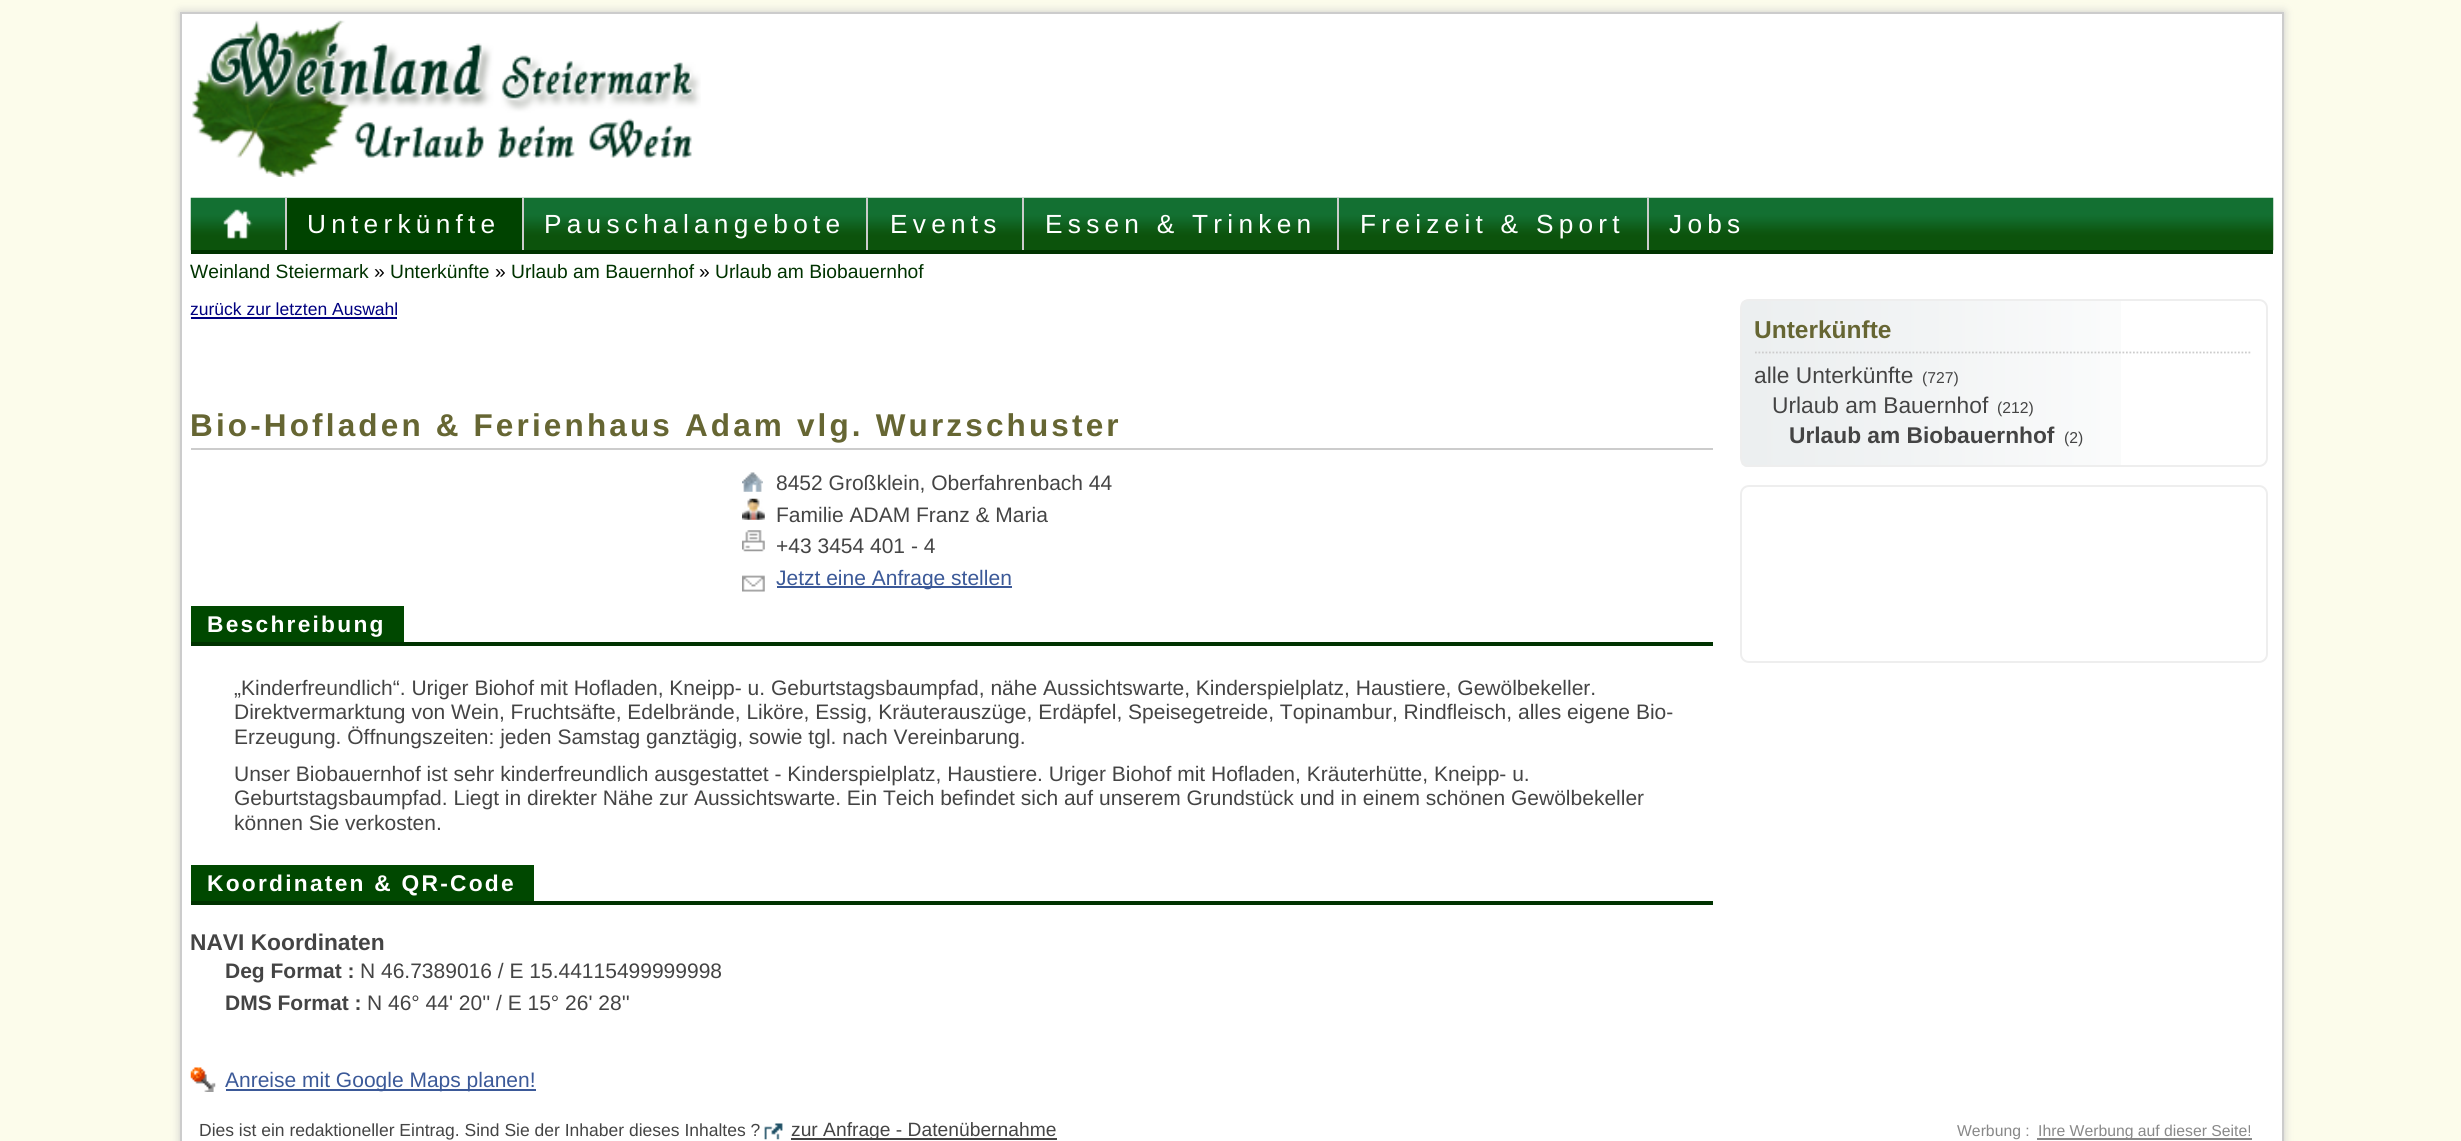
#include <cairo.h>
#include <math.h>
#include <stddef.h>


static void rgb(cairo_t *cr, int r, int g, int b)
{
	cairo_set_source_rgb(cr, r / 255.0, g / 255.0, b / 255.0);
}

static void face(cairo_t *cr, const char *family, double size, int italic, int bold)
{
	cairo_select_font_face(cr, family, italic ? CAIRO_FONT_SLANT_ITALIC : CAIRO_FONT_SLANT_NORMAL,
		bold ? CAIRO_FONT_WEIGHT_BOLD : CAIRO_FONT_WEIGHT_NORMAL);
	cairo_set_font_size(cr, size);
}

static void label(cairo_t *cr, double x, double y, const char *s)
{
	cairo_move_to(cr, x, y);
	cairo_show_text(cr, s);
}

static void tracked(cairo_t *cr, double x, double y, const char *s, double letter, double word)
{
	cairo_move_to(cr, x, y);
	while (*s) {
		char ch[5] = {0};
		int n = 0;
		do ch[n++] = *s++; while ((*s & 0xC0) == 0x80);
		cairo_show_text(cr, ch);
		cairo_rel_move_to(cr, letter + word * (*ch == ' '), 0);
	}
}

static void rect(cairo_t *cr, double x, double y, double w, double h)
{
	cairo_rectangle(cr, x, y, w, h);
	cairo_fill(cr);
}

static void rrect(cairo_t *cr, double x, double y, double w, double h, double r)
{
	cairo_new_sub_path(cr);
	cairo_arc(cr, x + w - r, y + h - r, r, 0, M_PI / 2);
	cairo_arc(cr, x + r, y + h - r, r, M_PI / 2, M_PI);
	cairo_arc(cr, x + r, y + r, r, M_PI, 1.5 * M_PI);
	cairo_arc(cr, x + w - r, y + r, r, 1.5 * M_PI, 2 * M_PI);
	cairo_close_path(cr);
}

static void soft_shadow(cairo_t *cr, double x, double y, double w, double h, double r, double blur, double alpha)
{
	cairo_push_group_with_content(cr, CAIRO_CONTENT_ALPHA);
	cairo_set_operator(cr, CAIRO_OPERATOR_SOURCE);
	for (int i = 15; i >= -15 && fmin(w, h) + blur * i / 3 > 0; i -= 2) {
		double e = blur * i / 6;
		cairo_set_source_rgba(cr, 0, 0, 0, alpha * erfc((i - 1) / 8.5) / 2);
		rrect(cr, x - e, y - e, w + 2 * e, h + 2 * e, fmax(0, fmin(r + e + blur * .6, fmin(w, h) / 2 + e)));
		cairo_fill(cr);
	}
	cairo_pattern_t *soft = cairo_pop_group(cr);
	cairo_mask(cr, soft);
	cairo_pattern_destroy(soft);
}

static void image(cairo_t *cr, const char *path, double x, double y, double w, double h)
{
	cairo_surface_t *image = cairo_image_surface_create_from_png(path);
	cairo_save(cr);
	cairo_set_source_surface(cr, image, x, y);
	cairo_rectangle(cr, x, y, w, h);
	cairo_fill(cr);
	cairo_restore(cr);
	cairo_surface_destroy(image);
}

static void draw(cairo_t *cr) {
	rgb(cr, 252, 252, 235);
	cairo_paint(cr);
	rgb(cr, 204, 204, 204);
	soft_shadow(cr, 180, 12, 2104, 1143, 0, 4.5, 1);
	rgb(cr, 255, 255, 255);
	cairo_rectangle(cr, 181, 13, 2102, 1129);
	cairo_fill_preserve(cr);
	rgb(cr, 204, 204, 204);
	cairo_stroke(cr);
	image(cr, "image0.png", 192, 20, 509, 157);
	image(cr, "image1.png", 190, 197, 2084, 54);
	rgb(cr, 0, 51, 0);
	rect(cr, 191, 250, 2082, 4);
	image(cr, "image2.png", 223, 209, 30, 30);
	rgb(cr, 0, 67, 0);
	rect(cr, 287, 198, 235, 52);
	rgb(cr, 204, 204, 204);
	rect(cr, 285, 198, 2, 52);
	face(cr, "Liberation Sans", 26.25, 0, 0);
	rgb(cr, 255, 255, 255);
	tracked(cr, 307, 233, "Unterkünfte", 5.25, 0);
	rgb(cr, 204, 204, 204);
	rect(cr, 522, 198, 2, 52);
	rgb(cr, 255, 255, 255);
	tracked(cr, 544, 233, "Pauschalangebote", 5.25, 0);
	rgb(cr, 204, 204, 204);
	rect(cr, 866, 198, 2, 52);
	rgb(cr, 255, 255, 255);
	tracked(cr, 890, 233, "Events", 5.25, 0);
	rgb(cr, 204, 204, 204);
	rect(cr, 1022, 198, 2, 52);
	rgb(cr, 255, 255, 255);
	tracked(cr, 1045, 233, "Essen & Trinken", 5.25, 0);
	rgb(cr, 204, 204, 204);
	rect(cr, 1337, 198, 2, 52);
	rgb(cr, 255, 255, 255);
	tracked(cr, 1360, 233, "Freizeit & Sport", 5.25, 0);
	rgb(cr, 204, 204, 204);
	rect(cr, 1647, 198, 2, 52);
	rgb(cr, 255, 255, 255);
	tracked(cr, 1669, 233, "Jobs", 5.25, 0);
	face(cr, "Liberation Sans", 19.25, 0, 0);
	rgb(cr, 0, 51, 0);
	label(cr, 190, 278, "Weinland Steiermark");
	rgb(cr, 0, 0, 0);
	label(cr, 374, 278, "»");
	rgb(cr, 0, 51, 0);
	label(cr, 390, 278, "Unterkünfte");
	rgb(cr, 0, 0, 0);
	label(cr, 495, 278, "»");
	rgb(cr, 0, 51, 0);
	label(cr, 511, 278, "Urlaub am Bauernhof");
	rgb(cr, 0, 0, 0);
	label(cr, 699, 278, "»");
	rgb(cr, 0, 51, 0);
	label(cr, 715, 278, "Urlaub am Biobauernhof");
	face(cr, "Liberation Sans", 17.5, 0, 0);
	rgb(cr, 0, 0, 128);
	label(cr, 190, 315, "zurück zur letzten Auswahl");
	rect(cr, 191, 317, 206, 2);
	rgb(cr, 204, 204, 204);
	rect(cr, 191, 448, 1522, 2);
	face(cr, "Liberation Sans", 31.5, 0, 1);
	rgb(cr, 102, 102, 51);
	tracked(cr, 190, 436, "Bio-Hofladen & Ferienhaus Adam vlg. Wurzschuster", 3.15, 0);
	image(cr, "image3.png", 742, 472, 21, 20);
	face(cr, "Liberation Sans", 21, 0, 0);
	rgb(cr, 68, 68, 68);
	label(cr, 776, 490, "8452 Großklein, Oberfahrenbach 44");
	image(cr, "image4.png", 742, 498, 23, 22);
	label(cr, 776, 522, "Familie ADAM Franz & Maria");
	image(cr, "image5.png", 742, 530, 23, 22);
	label(cr, 776, 553, "+43 3454 401 - 4");
	image(cr, "image6.png", 742, 575, 23, 17);
	rgb(cr, 59, 89, 152);
	rect(cr, 777, 586, 235, 2);
	label(cr, 776, 585, "Jetzt eine Anfrage stellen");
	rgb(cr, 0, 50, 0);
	rect(cr, 191, 642, 1522, 4);
	rgb(cr, 0, 72, 0);
	rect(cr, 191, 606, 213, 36);
	face(cr, "Liberation Sans", 22.75, 0, 1);
	rgb(cr, 255, 255, 255);
	tracked(cr, 207, 632, "Beschreibung", 2.25, 0);
	face(cr, "Liberation Sans", 21, 0, 0);
	rgb(cr, 68, 68, 68);
	label(cr, 234, 695, "„Kinderfreundlich“. Uriger Biohof mit Hofladen, Kneipp- u. Geburtstagsbaumpfad, nähe Aussichtswarte, Kinderspielplatz, Haustiere, Gewölbekeller.");
	label(cr, 234, 719, "Direktvermarktung von Wein, Fruchtsäfte, Edelbrände, Liköre, Essig, Kräuterauszüge, Erdäpfel, Speisegetreide, Topinambur, Rindfleisch, alles eigene Bio-");
	label(cr, 234, 744, "Erzeugung. Öffnungszeiten: jeden Samstag ganztägig, sowie tgl. nach Vereinbarung.");
	label(cr, 234, 781, "Unser Biobauernhof ist sehr kinderfreundlich ausgestattet - Kinderspielplatz, Haustiere. Uriger Biohof mit Hofladen, Kräuterhütte, Kneipp- u.");
	label(cr, 234, 805, "Geburtstagsbaumpfad. Liegt in direkter Nähe zur Aussichtswarte. Ein Teich befindet sich auf unserem Grundstück und in einem schönen Gewölbekeller");
	label(cr, 234, 830, "können Sie verkosten.");
	rgb(cr, 0, 50, 0);
	rect(cr, 191, 901, 1522, 4);
	rgb(cr, 0, 72, 0);
	rect(cr, 191, 865, 343, 36);
	face(cr, "Liberation Sans", 22.75, 0, 1);
	rgb(cr, 255, 255, 255);
	tracked(cr, 207, 891, "Koordinaten & QR-Code", 2.25, 0);
	rgb(cr, 68, 68, 68);
	label(cr, 190, 950, "NAVI Koordinaten");
	face(cr, "Liberation Sans", 21, 0, 1);
	label(cr, 225, 978, "Deg Format :");
	face(cr, "Liberation Sans", 21, 0, 0);
	label(cr, 360, 978, "N 46.7389016 / E 15.44115499999998");
	face(cr, "Liberation Sans", 21, 0, 1);
	label(cr, 225, 1010, "DMS Format :");
	face(cr, "Liberation Sans", 21, 0, 0);
	label(cr, 367, 1010, "N 46° 44' 20'' / E 15° 26' 28''");
	image(cr, "image7.png", 190, 1067, 26, 25);
	rgb(cr, 59, 89, 152);
	rect(cr, 226, 1089, 310, 2);
	label(cr, 225, 1087, "Anreise mit Google Maps planen!");
	face(cr, "Liberation Sans", 17.5, 0, 0);
	rgb(cr, 68, 68, 68);
	label(cr, 199, 1136, "Dies ist ein redaktioneller Eintrag. Sind Sie der Inhaber dieses Inhaltes ?");
	image(cr, "image8.png", 764, 1123, 19, 17);
	rect(cr, 791, 1138, 266, 2);
	face(cr, "Liberation Sans", 19.25, 0, 0);
	label(cr, 791, 1136, "zur Anfrage - Datenübernahme");
	image(cr, "image9.png", 1741, 299, 380, 168);
	rrect(cr, 1741, 300, 526, 166, 8);
	rgb(cr, 238, 238, 238);
	cairo_stroke(cr);
	cairo_new_path(cr);
	cairo_move_to(cr, 1755, 352.5);
	cairo_line_to(cr, 2252, 352.5);
	rgb(cr, 204, 204, 204);
	cairo_set_line_width(cr, 1.8);
	cairo_set_dash(cr, (double[]){1.75, 1.75}, 2, 0);
	cairo_stroke(cr);
	face(cr, "Liberation Sans", 24.5, 0, 1);
	rgb(cr, 102, 102, 51);
	label(cr, 1754, 338, "Unterkünfte");
	face(cr, "Liberation Sans", 22.75, 0, 0);
	rgb(cr, 68, 68, 68);
	label(cr, 1754, 383, "alle Unterkünfte");
	face(cr, "Liberation Sans", 15.75, 0, 0);
	label(cr, 1922, 383, "(727)");
	face(cr, "Liberation Sans", 22.75, 0, 0);
	label(cr, 1772, 413, "Urlaub am Bauernhof");
	face(cr, "Liberation Sans", 15.75, 0, 0);
	label(cr, 1997, 413, "(212)");
	face(cr, "Liberation Sans", 22.75, 0, 1);
	label(cr, 1789, 443, "Urlaub am Biobauernhof");
	face(cr, "Liberation Sans", 15.75, 0, 0);
	label(cr, 2064, 443, "(2)");
	rrect(cr, 1741, 486, 526, 176, 8);
	rgb(cr, 238, 238, 238);
	cairo_set_line_width(cr, 2);
	cairo_set_dash(cr, NULL, 0, 0);
	cairo_stroke(cr);
	rgb(cr, 136, 136, 136);
	label(cr, 1957, 1136, "Werbung :");
	rect(cr, 2037, 1138, 215, 2);
	label(cr, 2038, 1136, "Ihre Werbung auf dieser Seite!");
}

int main(void) {
	cairo_surface_t *surface = cairo_image_surface_create(CAIRO_FORMAT_RGB24, 2461, 1141);
	cairo_t *cr = cairo_create(surface);
	cairo_font_options_t *options = cairo_font_options_create();
	cairo_font_options_set_hint_metrics(options, CAIRO_HINT_METRICS_OFF);
	cairo_font_options_set_hint_style(options, CAIRO_HINT_STYLE_NONE);
	cairo_set_font_options(cr, options);
	cairo_set_miter_limit(cr, 4);
	draw(cr);
	cairo_surface_write_to_png(surface, "render.png");
	cairo_font_options_destroy(options);
	cairo_destroy(cr);
	cairo_surface_destroy(surface);
	return 0;
}
